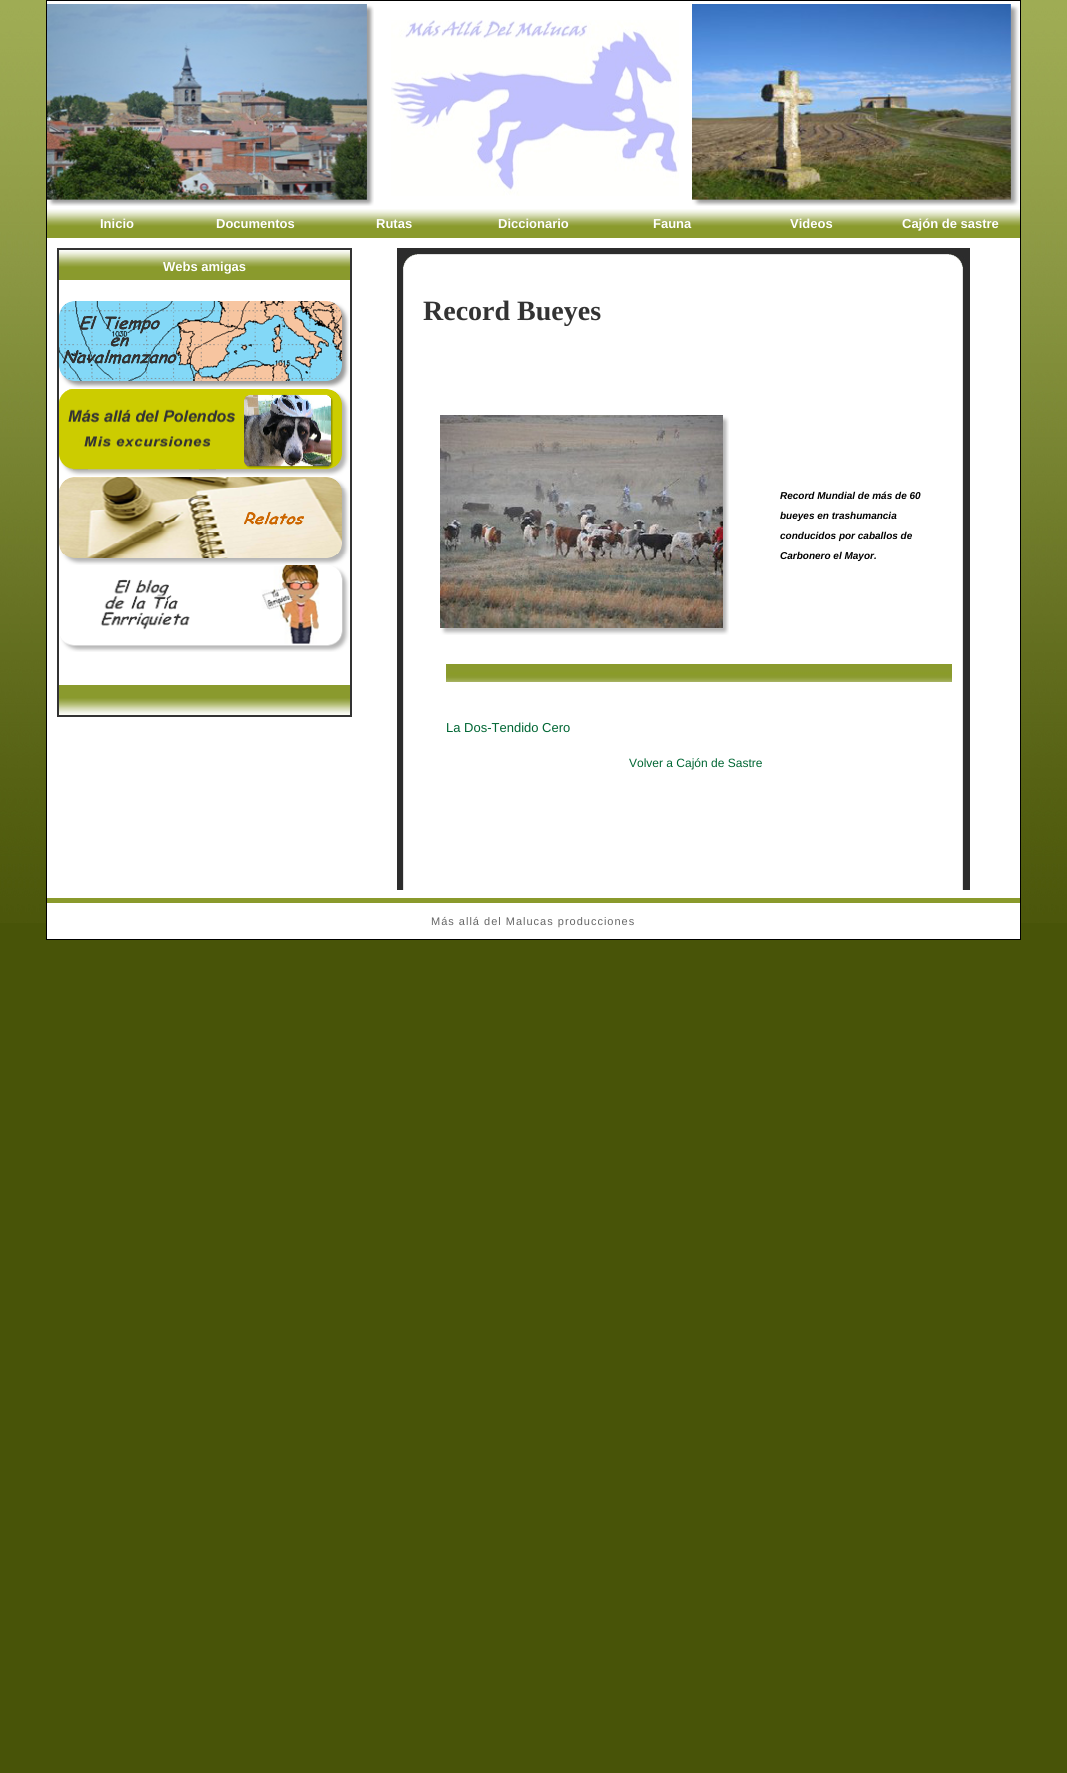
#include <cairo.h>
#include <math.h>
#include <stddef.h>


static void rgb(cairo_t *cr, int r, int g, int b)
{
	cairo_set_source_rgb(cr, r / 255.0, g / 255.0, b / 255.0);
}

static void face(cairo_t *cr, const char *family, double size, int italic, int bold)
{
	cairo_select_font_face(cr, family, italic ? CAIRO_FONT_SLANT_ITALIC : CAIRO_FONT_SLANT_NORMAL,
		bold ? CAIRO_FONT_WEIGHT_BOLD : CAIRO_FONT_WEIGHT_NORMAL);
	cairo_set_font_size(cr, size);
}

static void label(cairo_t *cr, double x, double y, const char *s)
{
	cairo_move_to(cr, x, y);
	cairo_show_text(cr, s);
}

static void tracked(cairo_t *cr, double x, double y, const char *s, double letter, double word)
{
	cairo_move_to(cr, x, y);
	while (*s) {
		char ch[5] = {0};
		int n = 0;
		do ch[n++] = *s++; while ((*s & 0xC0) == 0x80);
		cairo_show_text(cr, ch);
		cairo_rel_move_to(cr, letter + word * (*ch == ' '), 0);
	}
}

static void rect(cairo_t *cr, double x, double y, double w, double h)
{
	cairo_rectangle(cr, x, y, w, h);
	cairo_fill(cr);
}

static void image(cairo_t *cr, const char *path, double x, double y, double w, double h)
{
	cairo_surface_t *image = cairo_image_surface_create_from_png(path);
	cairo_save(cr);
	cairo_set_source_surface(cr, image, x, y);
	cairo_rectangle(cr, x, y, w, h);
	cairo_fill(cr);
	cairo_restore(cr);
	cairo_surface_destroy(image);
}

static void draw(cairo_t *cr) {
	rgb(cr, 72, 84, 8);
	cairo_paint(cr);
	image(cr, "image0.png", 0, 0, 1067, 923);
	rgb(cr, 255, 255, 255);
	cairo_rectangle(cr, 46.5, 0.5, 974, 939);
	cairo_fill_preserve(cr);
	rgb(cr, 0, 0, 0);
	cairo_set_line_width(cr, 1);
	cairo_stroke(cr);
	image(cr, "image1.png", 47, 4, 327, 202);
	image(cr, "image2.png", 391, 20, 288, 176);
	image(cr, "image3.png", 692, 4, 327, 202);
	image(cr, "image4.png", 47, 209, 973, 29);
	face(cr, "Liberation Sans", 13, 0, 1);
	rgb(cr, 255, 255, 255);
	label(cr, 100, 228, "Inicio");
	label(cr, 216, 228, "Documentos");
	label(cr, 376, 228, "Rutas");
	label(cr, 498, 228, "Diccionario");
	label(cr, 653, 228, "Fauna");
	label(cr, 790, 228, "Videos");
	label(cr, 902, 228, "Cajón de sastre");
	cairo_rectangle(cr, 58, 249, 293, 467);
	rgb(cr, 51, 51, 51);
	cairo_set_line_width(cr, 2);
	cairo_stroke(cr);
	image(cr, "image5.png", 59, 250, 291, 30);
	rgb(cr, 255, 255, 255);
	label(cr, 163, 271, "Webs amigas");
	image(cr, "image6.png", 59, 301, 290, 87);
	image(cr, "image7.png", 59, 389, 290, 87);
	image(cr, "image8.png", 59, 477, 290, 88);
	image(cr, "image9.png", 60, 565, 289, 87);
	rgb(cr, 138, 154, 45);
	rect(cr, 59, 685, 291, 13);
	image(cr, "image10.png", 59, 698, 291, 17);
	image(cr, "image11.png", 397, 248, 573, 19);
	image(cr, "image12.png", 397, 267, 573, 88);
	face(cr, "Liberation Serif", 28, 0, 1);
	rgb(cr, 51, 51, 51);
	label(cr, 423, 320, "Record Bueyes");
	image(cr, "image13.png", 397, 355, 573, 535);
	image(cr, "image14.png", 440, 415, 289, 220);
	face(cr, "Liberation Sans", 10, 1, 1);
	rgb(cr, 0, 0, 0);
	label(cr, 780, 499, "Record Mundial de más de 60");
	label(cr, 780, 519, "bueyes en trashumancia");
	label(cr, 780, 539, "conducidos por caballos de");
	label(cr, 780, 559, "Carbonero el Mayor.");
	image(cr, "image15.png", 446, 664, 506, 18);
	face(cr, "Liberation Sans", 13, 0, 0);
	rgb(cr, 0, 102, 51);
	label(cr, 446, 732, "La Dos-Tendido Cero");
	face(cr, "Liberation Sans", 12, 0, 0);
	label(cr, 629, 767, "Volver a Cajón de Sastre");
	rgb(cr, 138, 154, 44);
	rect(cr, 47, 898, 973, 5);
	face(cr, "Liberation Sans", 11, 0, 0);
	rgb(cr, 102, 102, 102);
	tracked(cr, 431, 925, "Más allá del Malucas producciones", 1, 0);
}

int main(void) {
	cairo_surface_t *surface = cairo_image_surface_create(CAIRO_FORMAT_RGB24, 1067, 1773);
	cairo_t *cr = cairo_create(surface);
	cairo_font_options_t *options = cairo_font_options_create();
	cairo_font_options_set_hint_metrics(options, CAIRO_HINT_METRICS_OFF);
	cairo_font_options_set_hint_style(options, CAIRO_HINT_STYLE_NONE);
	cairo_set_font_options(cr, options);
	cairo_set_miter_limit(cr, 4);
	draw(cr);
	cairo_surface_write_to_png(surface, "render.png");
	cairo_font_options_destroy(options);
	cairo_destroy(cr);
	cairo_surface_destroy(surface);
	return 0;
}
